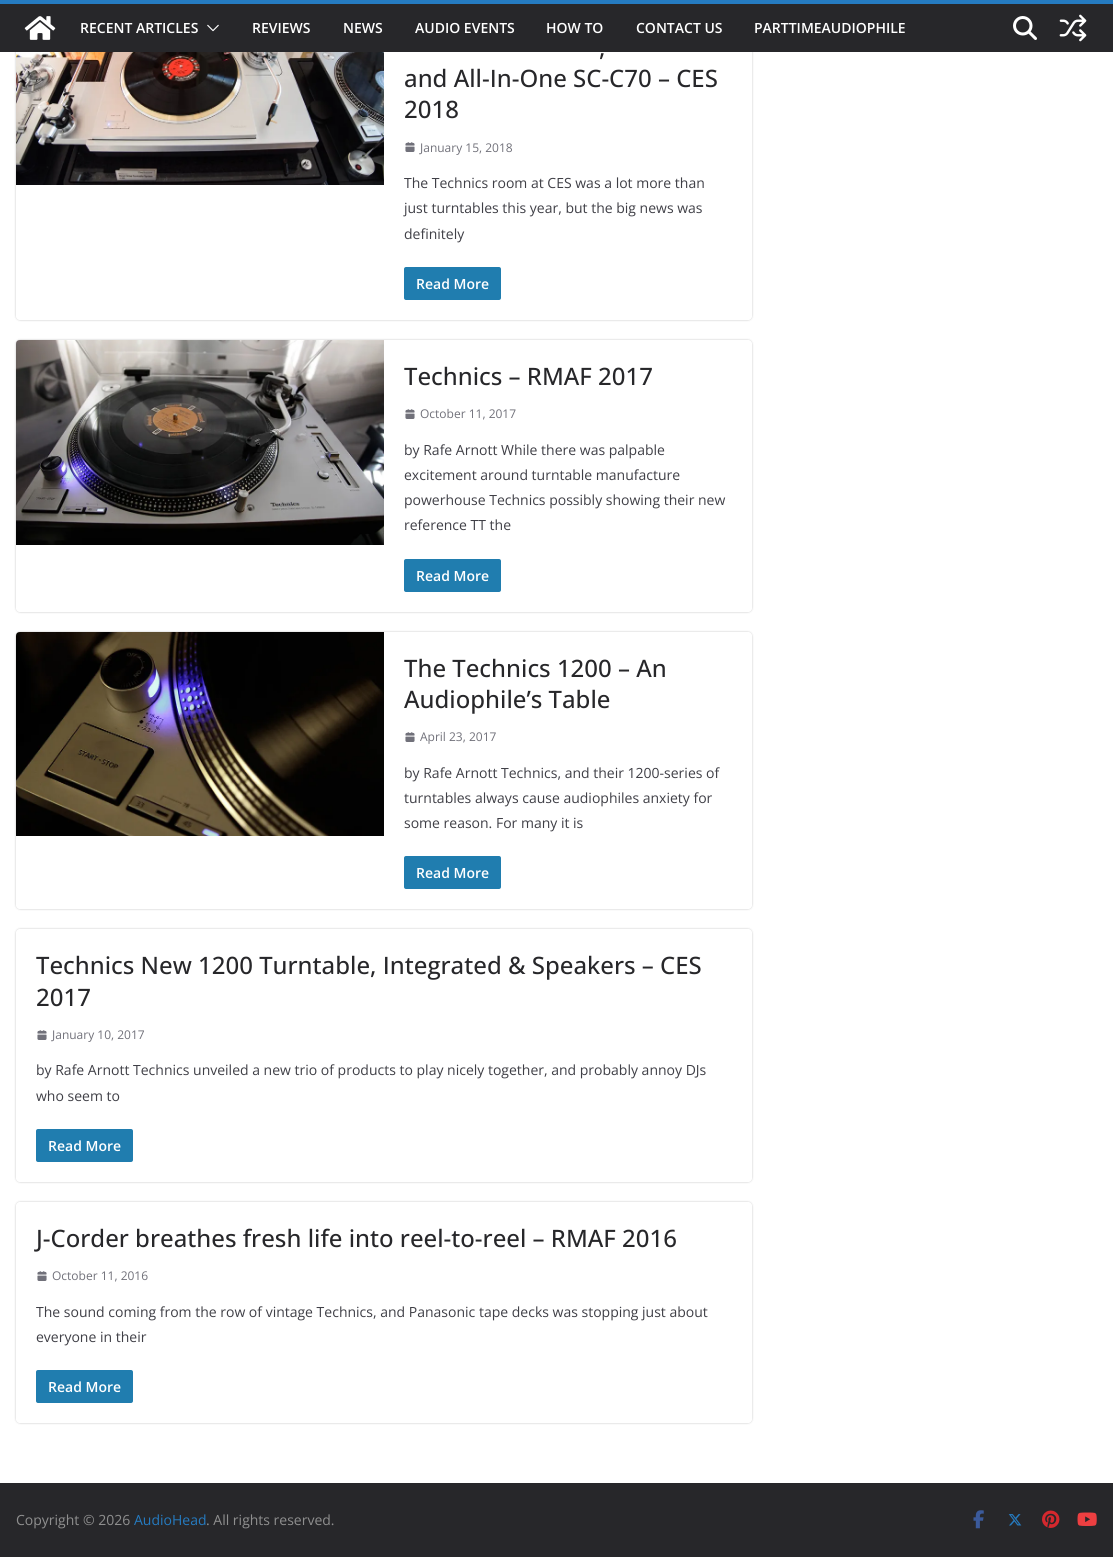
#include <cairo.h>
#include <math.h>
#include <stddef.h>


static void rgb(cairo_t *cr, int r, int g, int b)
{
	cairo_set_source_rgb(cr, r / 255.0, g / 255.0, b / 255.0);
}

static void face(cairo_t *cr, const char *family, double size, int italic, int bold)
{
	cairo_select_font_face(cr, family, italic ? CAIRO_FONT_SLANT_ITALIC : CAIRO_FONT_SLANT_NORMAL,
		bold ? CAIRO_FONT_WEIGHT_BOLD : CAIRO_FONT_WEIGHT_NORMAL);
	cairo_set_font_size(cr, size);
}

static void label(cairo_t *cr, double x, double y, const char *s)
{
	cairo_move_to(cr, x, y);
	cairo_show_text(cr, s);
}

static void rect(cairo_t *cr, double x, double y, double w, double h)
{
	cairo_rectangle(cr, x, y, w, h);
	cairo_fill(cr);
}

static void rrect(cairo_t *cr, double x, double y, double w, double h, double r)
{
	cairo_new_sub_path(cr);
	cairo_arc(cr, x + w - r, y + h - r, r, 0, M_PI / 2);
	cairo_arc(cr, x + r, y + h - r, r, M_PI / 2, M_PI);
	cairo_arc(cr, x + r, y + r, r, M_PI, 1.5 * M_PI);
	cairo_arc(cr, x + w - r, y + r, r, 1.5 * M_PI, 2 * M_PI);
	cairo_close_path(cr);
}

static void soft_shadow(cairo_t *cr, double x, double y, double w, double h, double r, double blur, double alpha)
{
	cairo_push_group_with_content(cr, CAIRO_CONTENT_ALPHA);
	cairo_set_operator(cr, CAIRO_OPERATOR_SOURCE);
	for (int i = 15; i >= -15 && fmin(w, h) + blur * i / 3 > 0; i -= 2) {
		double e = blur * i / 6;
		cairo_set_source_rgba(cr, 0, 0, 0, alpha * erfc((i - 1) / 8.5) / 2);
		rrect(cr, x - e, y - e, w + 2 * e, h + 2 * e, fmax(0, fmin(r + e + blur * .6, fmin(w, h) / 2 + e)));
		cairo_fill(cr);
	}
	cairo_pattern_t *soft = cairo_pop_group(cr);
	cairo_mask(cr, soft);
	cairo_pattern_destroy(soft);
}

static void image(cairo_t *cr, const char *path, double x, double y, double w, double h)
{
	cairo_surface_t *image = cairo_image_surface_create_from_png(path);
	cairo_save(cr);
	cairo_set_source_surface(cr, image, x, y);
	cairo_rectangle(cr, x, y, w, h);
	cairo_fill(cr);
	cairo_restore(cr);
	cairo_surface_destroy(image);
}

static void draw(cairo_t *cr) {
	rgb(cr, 255, 255, 255);
	cairo_paint(cr);
	cairo_save(cr);
	cairo_set_fill_rule(cr, CAIRO_FILL_RULE_EVEN_ODD);
	cairo_new_path(cr);
	cairo_move_to(cr, 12, 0);
	cairo_line_to(cr, 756, 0);
	cairo_line_to(cr, 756, 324);
	cairo_line_to(cr, 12, 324);
	cairo_close_path(cr);
	cairo_move_to(cr, 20, -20);
	cairo_line_to(cr, 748, -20);
	cairo_curve_to(cr, 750, -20, 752, -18, 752, -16);
	cairo_line_to(cr, 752, 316);
	cairo_curve_to(cr, 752, 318, 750, 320, 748, 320);
	cairo_line_to(cr, 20, 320);
	cairo_curve_to(cr, 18, 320, 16, 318, 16, 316);
	cairo_line_to(cr, 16, -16);
	cairo_curve_to(cr, 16, -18, 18, -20, 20, -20);
	cairo_close_path(cr);
	cairo_clip(cr);
	rgb(cr, 0, 0, 0);
	soft_shadow(cr, 16, -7, 736, 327, 4, 1, 0.24);
	cairo_restore(cr);
	rgb(cr, 39, 39, 42);
	rect(cr, 0, 4, 1113, 48);
	rgb(cr, 37, 123, 193);
	rect(cr, 0, 0, 1113, 4);
	image(cr, "image0.png", 24, 16, 32, 24);
	face(cr, "Open Sans SemiBold", 14, 0, 0);
	rgb(cr, 255, 255, 255);
	label(cr, 80, 33, "RECENT ARTICLES");
	image(cr, "image1.png", 207, 24, 12, 8);
	label(cr, 252, 33, "REVIEWS");
	label(cr, 343, 33, "NEWS");
	label(cr, 415, 33, "AUDIO EVENTS");
	label(cr, 546, 33, "HOW TO");
	label(cr, 636, 33, "CONTACT US");
	label(cr, 754, 33, "PARTTIMEAUDIOPHILE");
	image(cr, "image2.png", 1013, 16, 24, 24);
	image(cr, "image3.png", 1059, 14, 28, 28);
	image(cr, "image4.png", 16, 52, 368, 133);
	face(cr, "Open Sans Medium", 24, 0, 0);
	rgb(cr, 39, 39, 42);
	label(cr, 599, 56, ",");
	label(cr, 404, 87, "and All-In-One SC-C70 – CES");
	label(cr, 404, 118, "2018");
	image(cr, "image5.png", 405, 142, 10, 10);
	face(cr, "Open Sans", 12, 0, 0);
	rgb(cr, 113, 113, 122);
	label(cr, 420, 152, "January 15, 2018");
	face(cr, "Open Sans", 14, 0, 0);
	rgb(cr, 63, 63, 70);
	label(cr, 404, 188, "The Technics room at CES was a lot more than");
	label(cr, 404, 213, "just turntables this year, but the big news was");
	label(cr, 404, 239, "definitely");
	rgb(cr, 32, 125, 175);
	rrect(cr, 404, 267, 97, 33, 2);
	cairo_fill(cr);
	face(cr, "Open Sans SemiBold", 14, 0, 0);
	rgb(cr, 255, 255, 255);
	label(cr, 416, 289, "Read More");
	cairo_save(cr);
	cairo_set_fill_rule(cr, CAIRO_FILL_RULE_EVEN_ODD);
	cairo_new_path(cr);
	cairo_move_to(cr, 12, 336);
	cairo_line_to(cr, 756, 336);
	cairo_line_to(cr, 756, 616);
	cairo_line_to(cr, 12, 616);
	cairo_close_path(cr);
	cairo_move_to(cr, 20, 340);
	cairo_line_to(cr, 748, 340);
	cairo_curve_to(cr, 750, 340, 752, 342, 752, 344);
	cairo_line_to(cr, 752, 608);
	cairo_curve_to(cr, 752, 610, 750, 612, 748, 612);
	cairo_line_to(cr, 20, 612);
	cairo_curve_to(cr, 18, 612, 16, 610, 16, 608);
	cairo_line_to(cr, 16, 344);
	cairo_curve_to(cr, 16, 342, 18, 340, 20, 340);
	cairo_close_path(cr);
	cairo_clip(cr);
	rgb(cr, 0, 0, 0);
	soft_shadow(cr, 16, 340, 736, 272, 4, 1, 0.24);
	cairo_restore(cr);
	image(cr, "image6.png", 16, 340, 368, 205);
	face(cr, "Open Sans Medium", 24, 0, 0);
	rgb(cr, 39, 39, 42);
	label(cr, 404, 385, "Technics – RMAF 2017");
	image(cr, "image5.png", 405, 409, 10, 10);
	face(cr, "Open Sans", 12, 0, 0);
	rgb(cr, 113, 113, 122);
	label(cr, 420, 418, "October 11, 2017");
	face(cr, "Open Sans", 14, 0, 0);
	rgb(cr, 63, 63, 70);
	label(cr, 404, 455, "by Rafe Arnott While there was palpable");
	label(cr, 404, 480, "excitement around turntable manufacture");
	label(cr, 404, 505, "powerhouse Technics possibly showing their new");
	label(cr, 404, 530, "reference TT the");
	rgb(cr, 32, 125, 175);
	rrect(cr, 404, 559, 97, 33, 2);
	cairo_fill(cr);
	face(cr, "Open Sans SemiBold", 14, 0, 0);
	rgb(cr, 255, 255, 255);
	label(cr, 416, 581, "Read More");
	cairo_save(cr);
	cairo_set_fill_rule(cr, CAIRO_FILL_RULE_EVEN_ODD);
	cairo_new_path(cr);
	cairo_move_to(cr, 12, 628);
	cairo_line_to(cr, 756, 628);
	cairo_line_to(cr, 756, 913);
	cairo_line_to(cr, 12, 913);
	cairo_close_path(cr);
	cairo_move_to(cr, 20, 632);
	cairo_line_to(cr, 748, 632);
	cairo_curve_to(cr, 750, 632, 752, 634, 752, 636);
	cairo_line_to(cr, 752, 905);
	cairo_curve_to(cr, 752, 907, 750, 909, 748, 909);
	cairo_line_to(cr, 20, 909);
	cairo_curve_to(cr, 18, 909, 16, 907, 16, 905);
	cairo_line_to(cr, 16, 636);
	cairo_curve_to(cr, 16, 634, 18, 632, 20, 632);
	cairo_close_path(cr);
	cairo_clip(cr);
	rgb(cr, 0, 0, 0);
	soft_shadow(cr, 16, 632, 736, 277, 4, 1, 0.24);
	cairo_restore(cr);
	image(cr, "image7.png", 16, 632, 368, 204);
	face(cr, "Open Sans Medium", 24, 0, 0);
	rgb(cr, 39, 39, 42);
	label(cr, 404, 677, "The Technics 1200 – An");
	label(cr, 404, 708, "Audiophile’s Table");
	image(cr, "image5.png", 405, 732, 10, 10);
	face(cr, "Open Sans", 12, 0, 0);
	rgb(cr, 113, 113, 122);
	label(cr, 420, 741, "April 23, 2017");
	face(cr, "Open Sans", 14, 0, 0);
	rgb(cr, 63, 63, 70);
	label(cr, 404, 778, "by Rafe Arnott Technics, and their 1200-series of");
	label(cr, 404, 803, "turntables always cause audiophiles anxiety for");
	label(cr, 404, 828, "some reason. For many it is");
	rgb(cr, 32, 125, 175);
	rrect(cr, 404, 856, 97, 33, 2);
	cairo_fill(cr);
	face(cr, "Open Sans SemiBold", 14, 0, 0);
	rgb(cr, 255, 255, 255);
	label(cr, 416, 878, "Read More");
	cairo_save(cr);
	cairo_set_fill_rule(cr, CAIRO_FILL_RULE_EVEN_ODD);
	cairo_new_path(cr);
	cairo_move_to(cr, 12, 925);
	cairo_line_to(cr, 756, 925);
	cairo_line_to(cr, 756, 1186);
	cairo_line_to(cr, 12, 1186);
	cairo_close_path(cr);
	cairo_move_to(cr, 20, 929);
	cairo_line_to(cr, 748, 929);
	cairo_curve_to(cr, 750, 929, 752, 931, 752, 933);
	cairo_line_to(cr, 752, 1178);
	cairo_curve_to(cr, 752, 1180, 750, 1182, 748, 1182);
	cairo_line_to(cr, 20, 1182);
	cairo_curve_to(cr, 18, 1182, 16, 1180, 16, 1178);
	cairo_line_to(cr, 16, 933);
	cairo_curve_to(cr, 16, 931, 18, 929, 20, 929);
	cairo_close_path(cr);
	cairo_clip(cr);
	rgb(cr, 0, 0, 0);
	soft_shadow(cr, 16, 929, 736, 253, 4, 1, 0.24);
	cairo_restore(cr);
	face(cr, "Open Sans Medium", 24, 0, 0);
	rgb(cr, 39, 39, 42);
	label(cr, 36, 974, "Technics New 1200 Turntable, Integrated & Speakers – CES");
	label(cr, 36, 1006, "2017");
	image(cr, "image5.png", 37, 1030, 10, 10);
	face(cr, "Open Sans", 12, 0, 0);
	rgb(cr, 113, 113, 122);
	label(cr, 52, 1039, "January 10, 2017");
	face(cr, "Open Sans", 14, 0, 0);
	rgb(cr, 63, 63, 70);
	label(cr, 36, 1075, "by Rafe Arnott Technics unveiled a new trio of products to play nicely together, and probably annoy DJs");
	label(cr, 36, 1101, "who seem to");
	rgb(cr, 32, 125, 175);
	rrect(cr, 36, 1129, 97, 33, 2);
	cairo_fill(cr);
	face(cr, "Open Sans SemiBold", 14, 0, 0);
	rgb(cr, 255, 255, 255);
	label(cr, 48, 1151, "Read More");
	cairo_save(cr);
	cairo_set_fill_rule(cr, CAIRO_FILL_RULE_EVEN_ODD);
	cairo_new_path(cr);
	cairo_move_to(cr, 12, 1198);
	cairo_line_to(cr, 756, 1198);
	cairo_line_to(cr, 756, 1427);
	cairo_line_to(cr, 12, 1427);
	cairo_close_path(cr);
	cairo_move_to(cr, 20, 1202);
	cairo_line_to(cr, 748, 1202);
	cairo_curve_to(cr, 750, 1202, 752, 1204, 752, 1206);
	cairo_line_to(cr, 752, 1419);
	cairo_curve_to(cr, 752, 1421, 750, 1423, 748, 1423);
	cairo_line_to(cr, 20, 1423);
	cairo_curve_to(cr, 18, 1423, 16, 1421, 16, 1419);
	cairo_line_to(cr, 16, 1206);
	cairo_curve_to(cr, 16, 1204, 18, 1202, 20, 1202);
	cairo_close_path(cr);
	cairo_clip(cr);
	rgb(cr, 0, 0, 0);
	soft_shadow(cr, 16, 1202, 736, 221, 4, 1, 0.24);
	cairo_restore(cr);
	face(cr, "Open Sans Medium", 24, 0, 0);
	rgb(cr, 39, 39, 42);
	label(cr, 36, 1247, "J-Corder breathes fresh life into reel-to-reel – RMAF 2016");
	image(cr, "image5.png", 37, 1271, 10, 10);
	face(cr, "Open Sans", 12, 0, 0);
	rgb(cr, 113, 113, 122);
	label(cr, 52, 1280, "October 11, 2016");
	face(cr, "Open Sans", 14, 0, 0);
	rgb(cr, 63, 63, 70);
	label(cr, 36, 1317, "The sound coming from the row of vintage Technics, and Panasonic tape decks was stopping just about");
	label(cr, 36, 1342, "everyone in their");
	rgb(cr, 32, 125, 175);
	rrect(cr, 36, 1370, 97, 33, 2);
	cairo_fill(cr);
	face(cr, "Open Sans SemiBold", 14, 0, 0);
	rgb(cr, 255, 255, 255);
	label(cr, 48, 1392, "Read More");
	rgb(cr, 39, 39, 42);
	rect(cr, 0, 1483, 1113, 74);
	face(cr, "Open Sans", 14, 0, 0);
	rgb(cr, 143, 143, 143);
	label(cr, 16, 1525, "Copyright © 2026");
	rgb(cr, 37, 123, 193);
	label(cr, 134, 1525, "AudioHead");
	rgb(cr, 143, 143, 143);
	label(cr, 206, 1525, ". All rights reserved.");
	image(cr, "image8.png", 973, 1510, 11, 19);
	image(cr, "image9.png", 1008, 1514, 14, 12);
	image(cr, "image10.png", 1042, 1510, 18, 18);
	image(cr, "image11.png", 1077, 1512, 20, 14);
}

int main(void) {
	cairo_surface_t *surface = cairo_image_surface_create(CAIRO_FORMAT_RGB24, 1113, 1557);
	cairo_t *cr = cairo_create(surface);
	cairo_font_options_t *options = cairo_font_options_create();
	cairo_font_options_set_hint_metrics(options, CAIRO_HINT_METRICS_OFF);
	cairo_font_options_set_hint_style(options, CAIRO_HINT_STYLE_NONE);
	cairo_set_font_options(cr, options);
	cairo_set_miter_limit(cr, 4);
	draw(cr);
	cairo_surface_write_to_png(surface, "render.png");
	cairo_font_options_destroy(options);
	cairo_destroy(cr);
	cairo_surface_destroy(surface);
	return 0;
}
